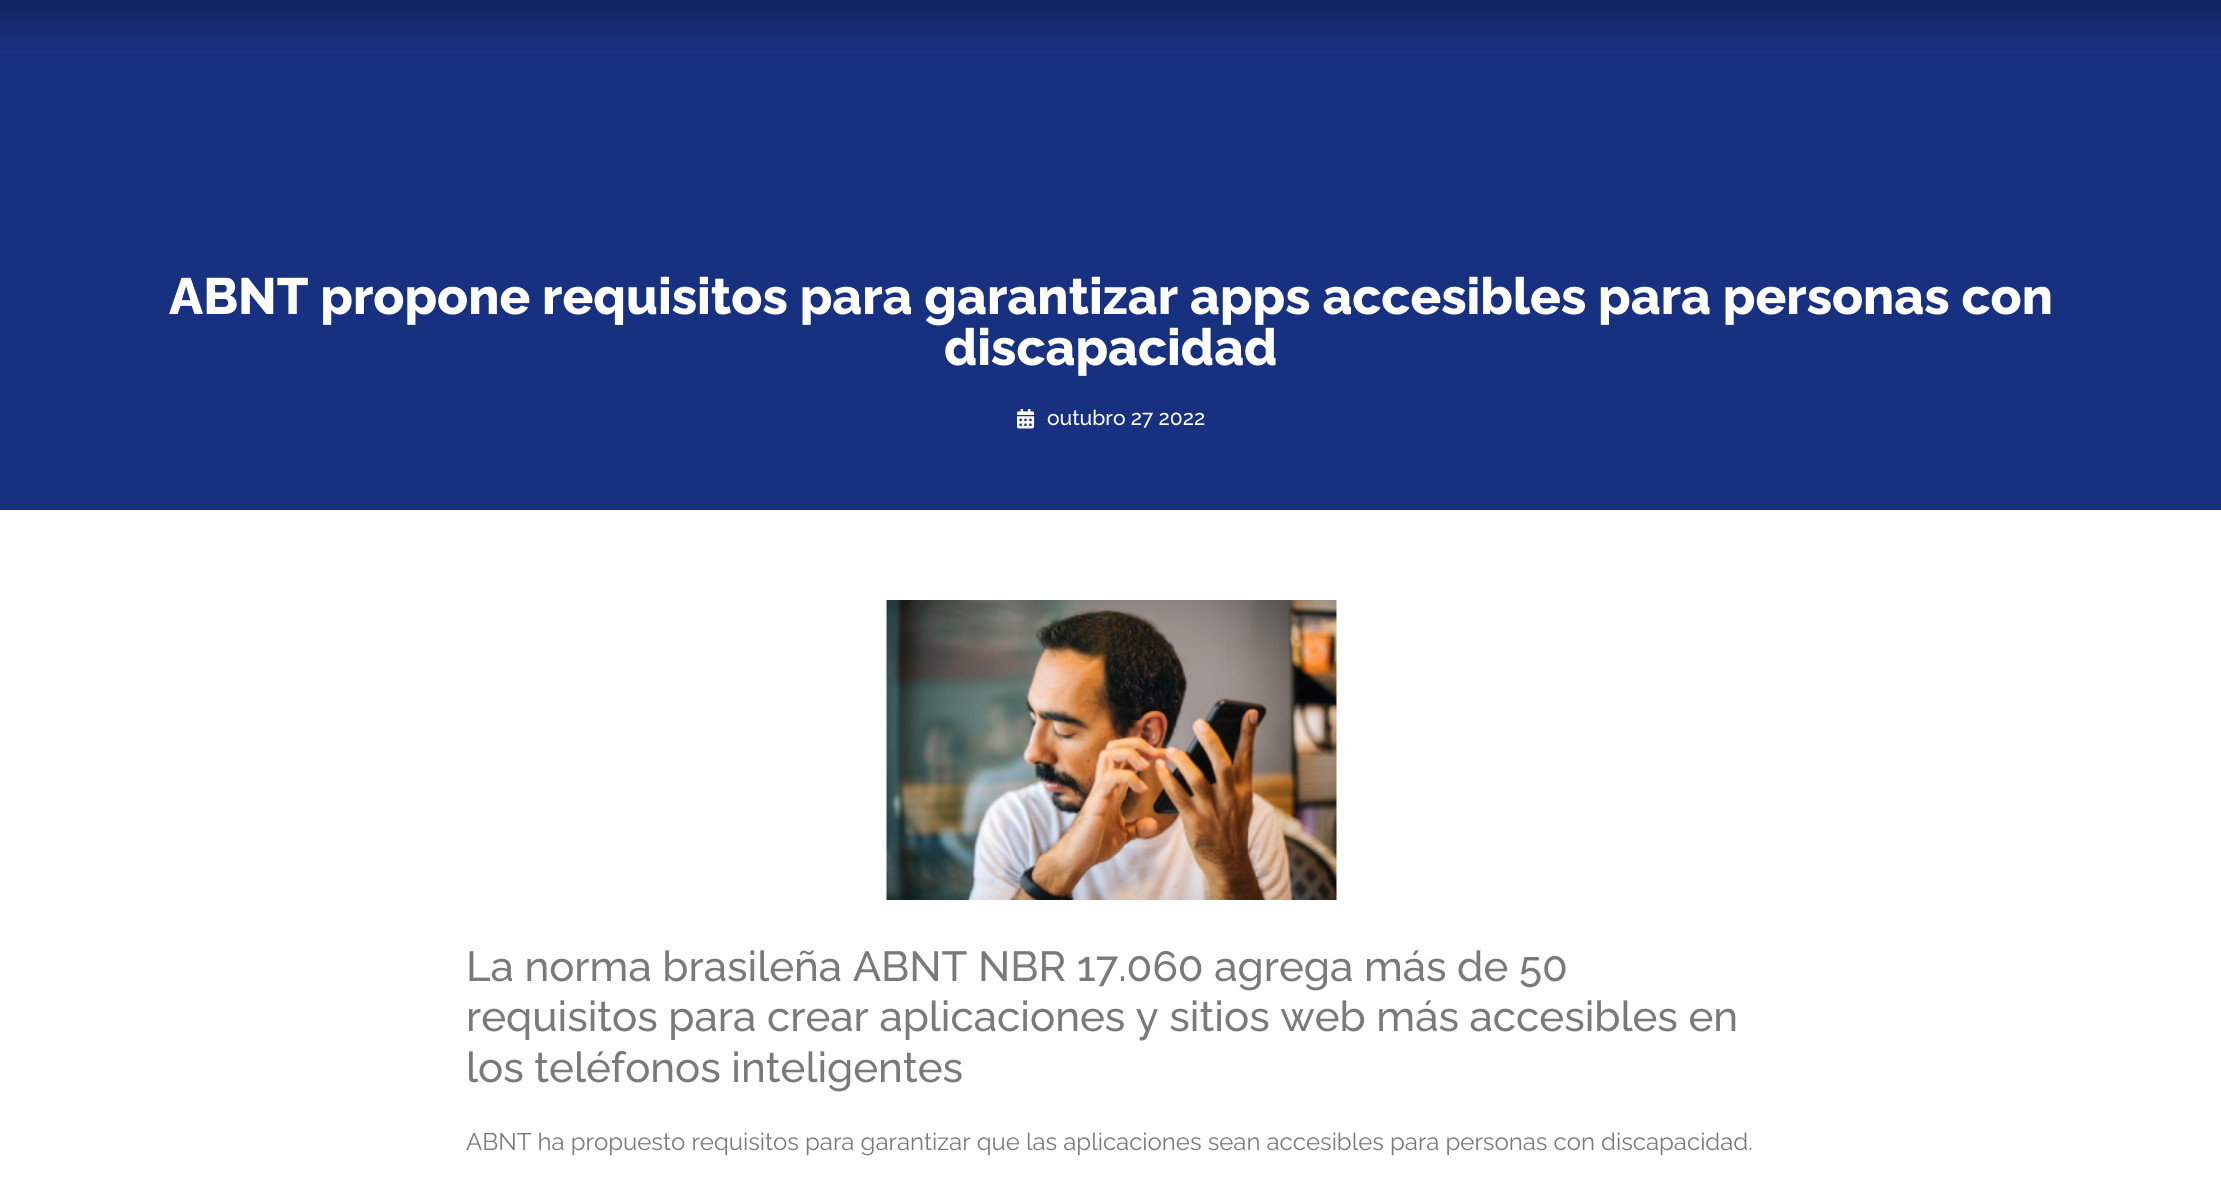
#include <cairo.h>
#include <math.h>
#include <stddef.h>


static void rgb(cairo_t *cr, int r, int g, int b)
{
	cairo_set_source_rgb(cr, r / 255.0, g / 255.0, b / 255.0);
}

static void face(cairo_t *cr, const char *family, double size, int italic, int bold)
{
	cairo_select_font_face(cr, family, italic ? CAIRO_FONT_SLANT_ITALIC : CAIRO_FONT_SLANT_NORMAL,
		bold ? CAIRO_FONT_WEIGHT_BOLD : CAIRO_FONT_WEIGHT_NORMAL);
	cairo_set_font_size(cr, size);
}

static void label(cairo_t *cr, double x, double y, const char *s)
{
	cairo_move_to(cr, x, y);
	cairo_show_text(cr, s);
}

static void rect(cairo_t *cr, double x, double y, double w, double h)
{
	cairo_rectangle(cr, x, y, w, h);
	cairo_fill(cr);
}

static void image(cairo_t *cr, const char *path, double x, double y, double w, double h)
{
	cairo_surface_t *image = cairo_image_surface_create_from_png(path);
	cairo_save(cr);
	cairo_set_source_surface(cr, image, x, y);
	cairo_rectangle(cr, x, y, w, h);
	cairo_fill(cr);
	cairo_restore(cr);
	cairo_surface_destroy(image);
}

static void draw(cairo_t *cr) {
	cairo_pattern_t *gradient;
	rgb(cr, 255, 255, 255);
	cairo_paint(cr);
	gradient = cairo_pattern_create_linear(1111, -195, 1111, 510);
	cairo_pattern_add_color_stop_rgba(gradient, 0.2, 0.047, 0.094, 0.251, 1);
	cairo_pattern_add_color_stop_rgba(gradient, 0.35, 0.094, 0.188, 0.502, 1);
	cairo_set_source(cr, gradient);
	cairo_pattern_destroy(gradient);
	rect(cr, 0, 0, 2221, 510);
	face(cr, "Raleway ExtraBold", 51, 0, 0);
	rgb(cr, 255, 255, 255);
	label(cr, 169, 314, "ABNT propone requisitos para garantizar apps accesibles para personas con");
	label(cr, 944, 365, "discapacidad");
	image(cr, "image0.png", 1017, 408, 18, 21);
	face(cr, "Raleway Medium", 21, 0, 0);
	label(cr, 1047, 425, "outubro 27 2022");
	image(cr, "image1.png", 886, 600, 451, 300);
	face(cr, "Raleway Medium", 42, 0, 0);
	rgb(cr, 122, 122, 122);
	label(cr, 466, 981, "La norma brasileña ABNT NBR 17.060 agrega más de 50");
	label(cr, 466, 1031, "requisitos para crear aplicaciones y sitios web más accesibles en");
	label(cr, 466, 1082, "los teléfonos inteligentes");
	face(cr, "Raleway", 24, 0, 0);
	label(cr, 466, 1150, "ABNT ha propuesto requisitos para garantizar que las aplicaciones sean accesibles para personas con discapacidad.");
}

int main(void) {
	cairo_surface_t *surface = cairo_image_surface_create(CAIRO_FORMAT_RGB24, 2221, 1186);
	cairo_t *cr = cairo_create(surface);
	cairo_font_options_t *options = cairo_font_options_create();
	cairo_font_options_set_hint_metrics(options, CAIRO_HINT_METRICS_OFF);
	cairo_font_options_set_hint_style(options, CAIRO_HINT_STYLE_NONE);
	cairo_set_font_options(cr, options);
	cairo_set_miter_limit(cr, 4);
	draw(cr);
	cairo_surface_write_to_png(surface, "render.png");
	cairo_font_options_destroy(options);
	cairo_destroy(cr);
	cairo_surface_destroy(surface);
	return 0;
}
